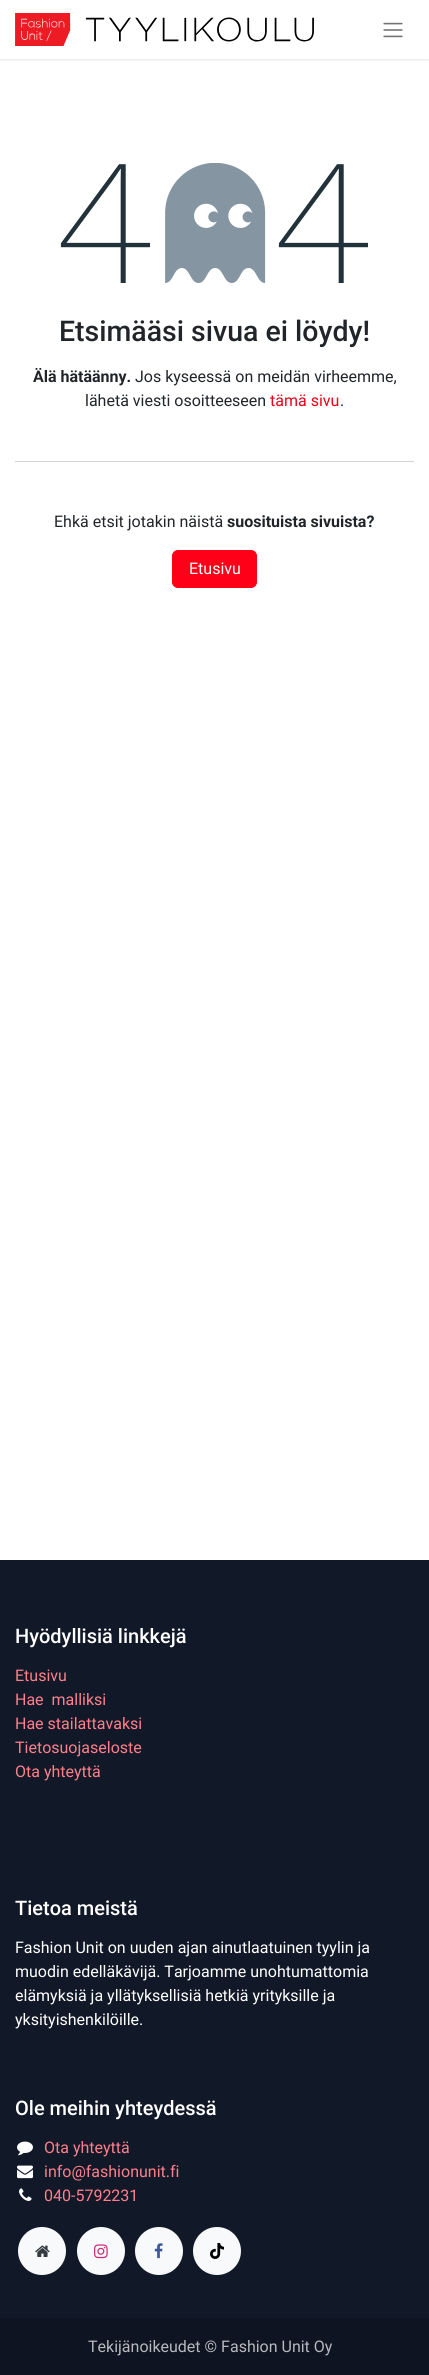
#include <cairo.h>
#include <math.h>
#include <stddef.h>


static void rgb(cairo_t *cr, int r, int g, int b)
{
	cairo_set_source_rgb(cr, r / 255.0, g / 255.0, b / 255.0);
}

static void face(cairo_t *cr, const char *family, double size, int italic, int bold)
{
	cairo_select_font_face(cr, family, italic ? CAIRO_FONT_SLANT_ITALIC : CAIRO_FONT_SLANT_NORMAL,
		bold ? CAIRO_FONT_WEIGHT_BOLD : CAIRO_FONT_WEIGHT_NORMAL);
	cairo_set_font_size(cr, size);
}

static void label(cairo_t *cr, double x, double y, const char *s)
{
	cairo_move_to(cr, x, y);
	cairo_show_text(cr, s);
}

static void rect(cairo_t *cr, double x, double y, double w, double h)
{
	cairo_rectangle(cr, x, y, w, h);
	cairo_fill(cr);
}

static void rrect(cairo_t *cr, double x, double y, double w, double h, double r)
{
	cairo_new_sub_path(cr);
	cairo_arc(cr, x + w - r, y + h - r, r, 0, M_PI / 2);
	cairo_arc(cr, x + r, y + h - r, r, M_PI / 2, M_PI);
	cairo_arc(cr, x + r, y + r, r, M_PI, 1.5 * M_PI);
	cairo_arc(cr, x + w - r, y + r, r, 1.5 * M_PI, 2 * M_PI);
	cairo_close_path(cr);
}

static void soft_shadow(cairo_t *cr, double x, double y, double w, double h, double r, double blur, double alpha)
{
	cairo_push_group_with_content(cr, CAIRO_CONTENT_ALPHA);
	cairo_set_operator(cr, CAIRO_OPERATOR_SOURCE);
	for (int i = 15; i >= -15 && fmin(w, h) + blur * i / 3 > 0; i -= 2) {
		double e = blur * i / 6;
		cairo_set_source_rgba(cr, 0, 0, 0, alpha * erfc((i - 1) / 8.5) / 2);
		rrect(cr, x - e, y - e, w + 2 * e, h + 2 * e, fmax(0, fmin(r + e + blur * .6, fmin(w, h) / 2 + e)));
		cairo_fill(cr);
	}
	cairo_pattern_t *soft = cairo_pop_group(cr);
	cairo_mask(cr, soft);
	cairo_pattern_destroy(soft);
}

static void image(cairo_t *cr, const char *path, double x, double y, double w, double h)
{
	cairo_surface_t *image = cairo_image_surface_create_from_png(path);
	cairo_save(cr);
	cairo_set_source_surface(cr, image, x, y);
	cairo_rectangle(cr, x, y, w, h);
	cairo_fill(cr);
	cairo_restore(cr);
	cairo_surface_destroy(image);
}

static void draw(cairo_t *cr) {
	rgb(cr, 255, 255, 255);
	cairo_paint(cr);
	cairo_save(cr);
	cairo_rectangle(cr, 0, 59, 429, 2);
	cairo_clip(cr);
	rgb(cr, 0, 0, 0);
	soft_shadow(cr, 0, 1, 429, 59, 0, 1.5, 0.1);
	cairo_restore(cr);
	image(cr, "image0.png", 15, 13, 299, 33);
	image(cr, "image1.png", 383, 22, 20, 16);
	image(cr, "image2.png", 60, 163, 308, 120);
	face(cr, "Roboto Medium", 28.5, 0, 0);
	rgb(cr, 33, 37, 41);
	label(cr, 59, 341, "Etsimääsi sivua ei löydy!");
	face(cr, "Roboto", 16, 0, 1);
	label(cr, 33, 382, "Älä hätäänny.");
	face(cr, "Roboto", 16, 0, 0);
	label(cr, 135, 382, "Jos kyseessä on meidän virheemme,");
	label(cr, 85, 406, "lähetä viesti osoitteeseen");
	rgb(cr, 240, 0, 24);
	label(cr, 270, 406, "tämä sivu");
	rgb(cr, 33, 37, 41);
	label(cr, 340, 406, ".");
	rgb(cr, 206, 212, 218);
	rect(cr, 15, 461, 399, 1);
	rgb(cr, 33, 37, 41);
	label(cr, 54, 527, "Ehkä etsit jotakin näistä");
	face(cr, "Roboto", 16, 0, 1);
	label(cr, 227, 527, "suosituista sivuista?");
	rgb(cr, 255, 0, 25);
	rrect(cr, 172.5, 550.5, 84, 37, 5.5);
	cairo_fill_preserve(cr);
	cairo_set_line_width(cr, 1);
	cairo_stroke(cr);
	face(cr, "Roboto", 16, 0, 0);
	rgb(cr, 255, 255, 255);
	label(cr, 189, 574, "Etusivu");
	rgb(cr, 17, 24, 39);
	rect(cr, 0, 1560, 429, 758);
	face(cr, "Roboto Medium", 20, 0, 0);
	rgb(cr, 255, 255, 255);
	label(cr, 15, 1643, "Hyödyllisiä linkkejä");
	face(cr, "Roboto", 16, 0, 0);
	rgb(cr, 255, 128, 140);
	label(cr, 15, 1681, "Etusivu");
	label(cr, 15, 1705, "Hae  malliksi");
	label(cr, 15, 1729, "Hae stailattavaksi");
	label(cr, 15, 1753, "Tietosuojaseloste");
	label(cr, 15, 1777, "Ota yhteyttä");
	face(cr, "Roboto Medium", 20, 0, 0);
	rgb(cr, 255, 255, 255);
	label(cr, 15, 1915, "Tietoa meistä");
	face(cr, "Roboto", 16, 0, 0);
	label(cr, 15, 1953, "Fashion Unit on uuden ajan ainutlaatuinen tyylin ja");
	label(cr, 15, 1977, "muodin edelläkävijä. Tarjoamme unohtumattomia");
	label(cr, 15, 2001, "elämyksiä ja yllätyksellisiä hetkiä yrityksille ja");
	label(cr, 15, 2025, "yksityishenkilöille.");
	face(cr, "Roboto Medium", 20, 0, 0);
	label(cr, 15, 2115, "Ole meihin yhteydessä");
	image(cr, "image3.png", 17, 2141, 16, 15);
	face(cr, "Roboto", 16, 0, 0);
	rgb(cr, 255, 128, 140);
	label(cr, 44, 2153, "Ota yhteyttä");
	image(cr, "image4.png", 17, 2165, 16, 14);
	label(cr, 44, 2177, "info@fashionunit.fi");
	image(cr, "image5.png", 19, 2188, 13, 13);
	label(cr, 44, 2201, "040-5792231");
	rgb(cr, 248, 249, 250);
	cairo_new_path(cr);
	cairo_arc(cr, 42, 2251, 24, 0, 2 * M_PI);
	cairo_fill(cr);
	image(cr, "image6.png", 35, 2245, 15, 12);
	cairo_arc(cr, 101, 2251, 24, 0, 2 * M_PI);
	cairo_fill(cr);
	image(cr, "image7.png", 94, 2244, 14, 15);
	cairo_arc(cr, 159, 2251, 24, 0, 2 * M_PI);
	cairo_fill(cr);
	image(cr, "image8.png", 154, 2243, 9, 16);
	cairo_arc(cr, 217, 2251, 24, 0, 2 * M_PI);
	cairo_fill(cr);
	image(cr, "image9.png", 210, 2243, 14, 16);
	rgb(cr, 14, 20, 33);
	rect(cr, 0, 2318, 429, 57);
	rgb(cr, 183, 185, 188);
	label(cr, 88, 2352, "Tekijänoikeudet © Fashion Unit Oy");
}

int main(void) {
	cairo_surface_t *surface = cairo_image_surface_create(CAIRO_FORMAT_RGB24, 429, 2375);
	cairo_t *cr = cairo_create(surface);
	cairo_font_options_t *options = cairo_font_options_create();
	cairo_font_options_set_hint_metrics(options, CAIRO_HINT_METRICS_OFF);
	cairo_font_options_set_hint_style(options, CAIRO_HINT_STYLE_NONE);
	cairo_set_font_options(cr, options);
	cairo_set_miter_limit(cr, 4);
	draw(cr);
	cairo_surface_write_to_png(surface, "render.png");
	cairo_font_options_destroy(options);
	cairo_destroy(cr);
	cairo_surface_destroy(surface);
	return 0;
}
